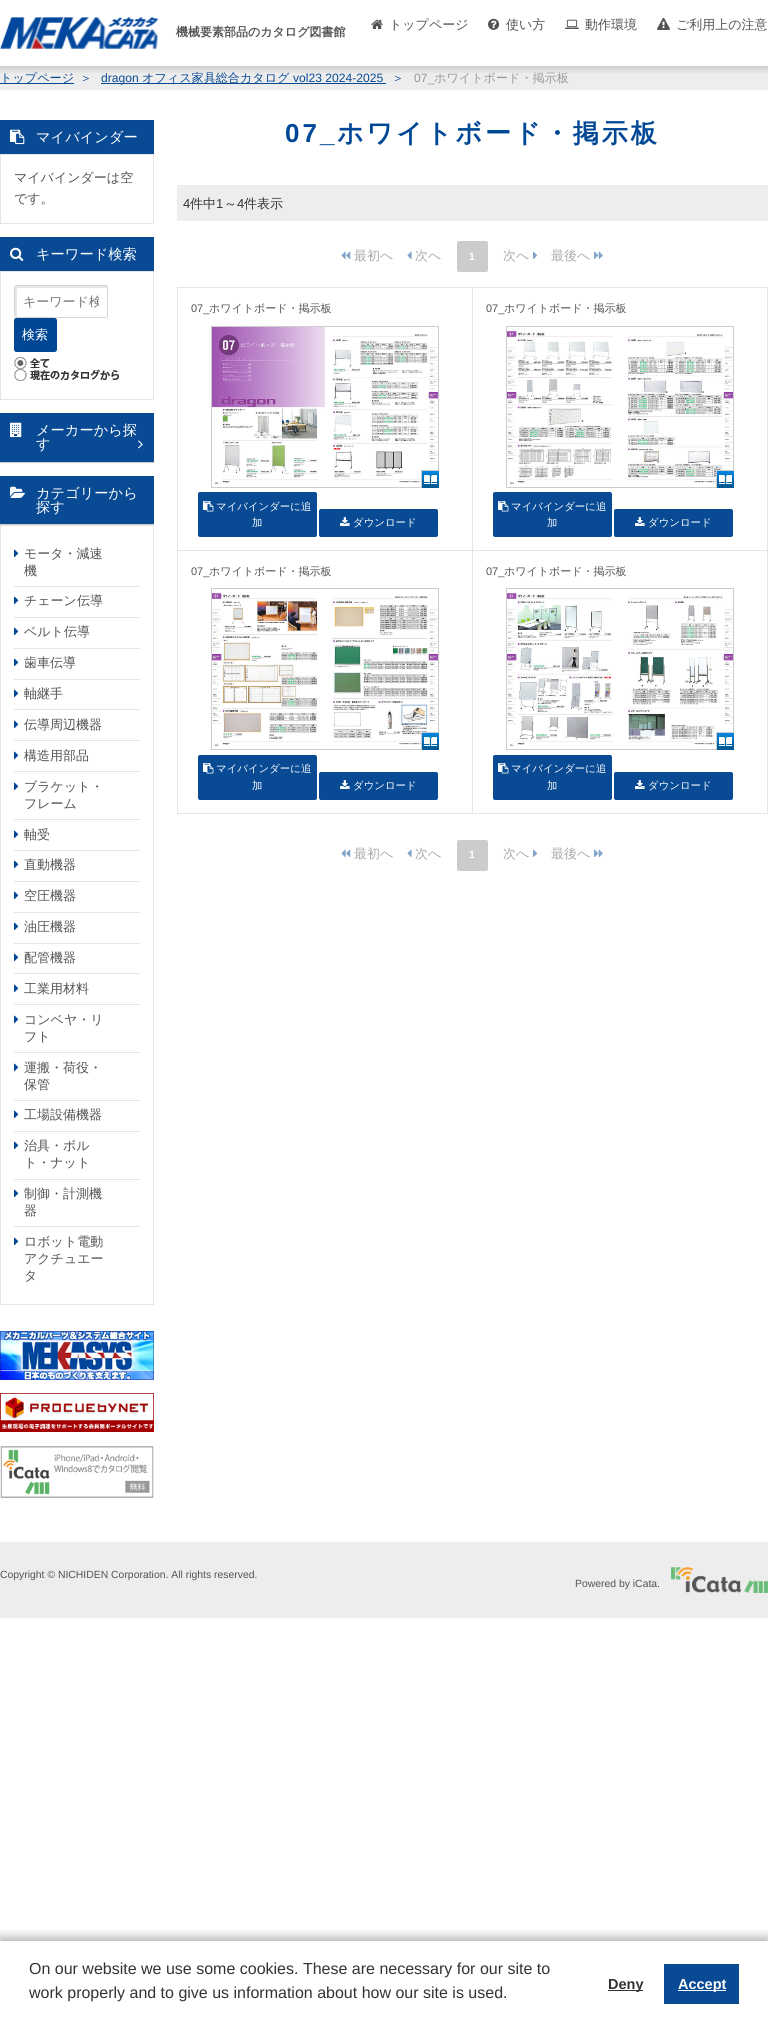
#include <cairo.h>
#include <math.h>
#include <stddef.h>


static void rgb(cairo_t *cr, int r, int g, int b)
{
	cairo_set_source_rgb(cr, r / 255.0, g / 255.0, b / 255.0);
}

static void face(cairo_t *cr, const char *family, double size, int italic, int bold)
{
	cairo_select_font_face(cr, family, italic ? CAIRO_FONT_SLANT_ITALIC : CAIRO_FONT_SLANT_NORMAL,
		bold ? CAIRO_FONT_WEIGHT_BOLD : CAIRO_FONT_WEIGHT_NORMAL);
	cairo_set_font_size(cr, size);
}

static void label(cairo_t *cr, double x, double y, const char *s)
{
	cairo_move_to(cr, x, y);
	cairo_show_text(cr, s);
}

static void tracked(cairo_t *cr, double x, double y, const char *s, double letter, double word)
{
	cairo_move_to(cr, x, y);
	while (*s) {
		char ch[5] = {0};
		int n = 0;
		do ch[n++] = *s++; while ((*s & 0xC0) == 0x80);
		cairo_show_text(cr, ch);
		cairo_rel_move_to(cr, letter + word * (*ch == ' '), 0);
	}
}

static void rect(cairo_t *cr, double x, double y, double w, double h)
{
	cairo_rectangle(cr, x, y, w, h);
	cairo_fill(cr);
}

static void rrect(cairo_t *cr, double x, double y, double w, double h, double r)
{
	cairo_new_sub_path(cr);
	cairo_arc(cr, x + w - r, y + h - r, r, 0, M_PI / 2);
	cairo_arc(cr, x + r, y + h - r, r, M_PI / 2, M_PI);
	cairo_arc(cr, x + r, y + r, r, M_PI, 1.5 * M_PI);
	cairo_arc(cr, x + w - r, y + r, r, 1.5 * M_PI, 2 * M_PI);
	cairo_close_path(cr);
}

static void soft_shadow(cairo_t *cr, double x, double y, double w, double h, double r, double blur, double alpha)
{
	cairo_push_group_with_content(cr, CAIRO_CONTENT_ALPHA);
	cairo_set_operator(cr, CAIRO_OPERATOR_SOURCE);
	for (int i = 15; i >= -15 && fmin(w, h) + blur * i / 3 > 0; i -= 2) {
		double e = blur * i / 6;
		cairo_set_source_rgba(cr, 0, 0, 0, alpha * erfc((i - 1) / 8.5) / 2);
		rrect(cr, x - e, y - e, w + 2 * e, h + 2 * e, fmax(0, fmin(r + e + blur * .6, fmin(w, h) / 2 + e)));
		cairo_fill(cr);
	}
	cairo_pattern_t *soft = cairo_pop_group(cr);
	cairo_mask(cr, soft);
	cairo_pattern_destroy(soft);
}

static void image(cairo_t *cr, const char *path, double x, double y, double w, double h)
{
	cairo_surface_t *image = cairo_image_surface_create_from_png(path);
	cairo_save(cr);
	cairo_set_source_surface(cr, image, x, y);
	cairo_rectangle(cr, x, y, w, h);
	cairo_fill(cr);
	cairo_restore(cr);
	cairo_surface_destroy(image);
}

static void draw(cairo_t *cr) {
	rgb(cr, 255, 255, 255);
	cairo_paint(cr);
	rgb(cr, 237, 237, 237);
	rect(cr, 0, 66, 768, 24);
	cairo_save(cr);
	cairo_rectangle(cr, 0, 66, 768, 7);
	cairo_clip(cr);
	rgb(cr, 0, 0, 0);
	soft_shadow(cr, 0, 0, 768, 66, 0, 5, 0.3);
	cairo_restore(cr);
	image(cr, "image0.png", 0, 17, 158, 32);
	face(cr, "WenQuanYi Zen Hei", 12, 0, 1);
	rgb(cr, 83, 83, 83);
	label(cr, 176, 36, "機械要素部品のカタログ図書館");
	image(cr, "image1.png", 371, 19, 12, 10);
	face(cr, "WenQuanYi Zen Hei Medium", 13, 0, 0);
	label(cr, 389, 29, "トップページ");
	image(cr, "image2.png", 488, 18, 12, 12);
	label(cr, 506, 29, "使い方");
	image(cr, "image3.png", 565, 19, 14, 10);
	label(cr, 585, 29, "動作環境");
	image(cr, "image4.png", 657, 17, 13, 13);
	label(cr, 676, 29, "ご利用上の注意");
	rgb(cr, 8, 74, 148);
	rect(cr, 0, 83, 74, 1);
	face(cr, "WenQuanYi Zen Hei Medium", 12.1, 0, 0);
	label(cr, 0, 82, "トップページ");
	label(cr, 80, 82, "＞");
	rect(cr, 101, 83, 285, 1);
	face(cr, "Liberation Sans", 12.1, 0, 0);
	label(cr, 101, 82, "dragon");
	face(cr, "WenQuanYi Zen Hei Medium", 12.1, 0, 0);
	label(cr, 142, 82, "オフィス家具総合カタログ");
	face(cr, "Liberation Sans", 12.1, 0, 0);
	label(cr, 293, 82, "vol23 2024-2025");
	face(cr, "WenQuanYi Zen Hei Medium", 12.1, 0, 0);
	label(cr, 392, 82, "＞");
	face(cr, "Liberation Sans", 12.1, 0, 0);
	rgb(cr, 153, 153, 153);
	label(cr, 414, 82, "07_");
	face(cr, "WenQuanYi Zen Hei Medium", 12.1, 0, 0);
	label(cr, 434, 82, "ホワイトボード・掲示板");
	rgb(cr, 8, 74, 148);
	rect(cr, 0, 120, 154, 34);
	image(cr, "image5.png", 10, 129, 15, 16);
	face(cr, "WenQuanYi Zen Hei Medium", 14.25, 0, 0);
	rgb(cr, 255, 255, 255);
	label(cr, 36, 142, "マイバインダー");
	cairo_rectangle(cr, 0.5, 154.5, 153, 69);
	rgb(cr, 229, 229, 229);
	cairo_set_line_width(cr, 1);
	cairo_stroke(cr);
	face(cr, "WenQuanYi Zen Hei Medium", 13, 0, 0);
	rgb(cr, 83, 83, 83);
	label(cr, 14, 182, "マイバインダーは空");
	label(cr, 14, 203, "です。");
	rgb(cr, 8, 74, 148);
	rect(cr, 0, 237, 154, 34);
	image(cr, "image6.png", 10, 247, 14, 14);
	face(cr, "WenQuanYi Zen Hei Medium", 14.25, 0, 0);
	rgb(cr, 255, 255, 255);
	label(cr, 36, 259, "キーワード検索");
	cairo_rectangle(cr, 0.5, 271.5, 153, 128);
	rgb(cr, 229, 229, 229);
	cairo_stroke(cr);
	rgb(cr, 230, 230, 230);
	cairo_set_fill_rule(cr, CAIRO_FILL_RULE_EVEN_ODD);
	cairo_new_path(cr);
	cairo_move_to(cr, 18, 288);
	cairo_line_to(cr, 106, 288);
	cairo_line_to(cr, 107, 289);
	cairo_curve_to(cr, 107, 282, 96, 286, 91, 286);
	cairo_line_to(cr, 31, 286);
	cairo_curve_to(cr, 13, 286, 15, 282, 15, 297);
	cairo_line_to(cr, 15, 311);
	cairo_curve_to(cr, 15, 315, 14, 317, 18, 317);
	cairo_line_to(cr, 17, 316);
	cairo_line_to(cr, 17, 289);
	cairo_close_path(cr);
	cairo_move_to(cr, 107, 316);
	cairo_line_to(cr, 106, 317);
	cairo_close_path(cr);
	cairo_fill(cr);
	rrect(cr, 14.5, 285.5, 93, 32, 2);
	rgb(cr, 213, 213, 213);
	cairo_stroke(cr);
	cairo_save(cr);
	cairo_set_fill_rule(cr, CAIRO_FILL_RULE_WINDING);
	cairo_rectangle(cr, 23, 293, 76, 18);
	cairo_clip(cr);
	face(cr, "WenQuanYi Zen Hei Medium", 13, 0, 0);
	rgb(cr, 117, 117, 117);
	label(cr, 23, 306, "キーワード検");
	cairo_restore(cr);
	rgb(cr, 0, 72, 150);
	rrect(cr, 14, 318, 43, 34, 2.5);
	cairo_fill(cr);
	face(cr, "WenQuanYi Zen Hei Medium", 13, 0, 0);
	rgb(cr, 255, 255, 255);
	label(cr, 22, 339, "検索");
	image(cr, "image7.png", 14, 357, 36, 12);
	image(cr, "image8.png", 14, 369, 105, 12);
	rgb(cr, 8, 74, 148);
	rect(cr, 0, 413, 154, 49);
	rgb(cr, 204, 204, 204);
	rect(cr, 0, 462, 154, 1);
	image(cr, "image9.png", 10, 422, 12, 16);
	face(cr, "WenQuanYi Zen Hei Medium", 14.25, 0, 0);
	rgb(cr, 255, 255, 255);
	label(cr, 36, 435, "メーカーから探");
	label(cr, 36, 449, "す");
	image(cr, "image10.png", 138, 440, 5, 9);
	rgb(cr, 8, 74, 148);
	rect(cr, 0, 476, 154, 48);
	rgb(cr, 204, 204, 204);
	rect(cr, 0, 524, 154, 1);
	image(cr, "image11.png", 10, 486, 15, 12);
	rgb(cr, 255, 255, 255);
	label(cr, 36, 498, "カテゴリーから");
	label(cr, 36, 512, "探す");
	cairo_rectangle(cr, 0.5, 525.5, 153, 779);
	rgb(cr, 229, 229, 229);
	cairo_stroke(cr);
	rect(cr, 14, 586, 126, 1);
	image(cr, "image12.png", 14, 549, 5, 8);
	face(cr, "WenQuanYi Zen Hei Medium", 13, 0, 0);
	rgb(cr, 83, 83, 83);
	label(cr, 24, 558, "モータ・減速");
	label(cr, 24, 575, "機");
	rgb(cr, 229, 229, 229);
	rect(cr, 14, 617, 126, 1);
	image(cr, "image12.png", 14, 596, 5, 8);
	rgb(cr, 83, 83, 83);
	label(cr, 24, 605, "チェーン伝導");
	rgb(cr, 229, 229, 229);
	rect(cr, 14, 648, 126, 1);
	image(cr, "image12.png", 14, 627, 5, 8);
	rgb(cr, 83, 83, 83);
	label(cr, 24, 636, "ベルト伝導");
	rgb(cr, 229, 229, 229);
	rect(cr, 14, 679, 126, 1);
	image(cr, "image12.png", 14, 658, 5, 8);
	rgb(cr, 83, 83, 83);
	label(cr, 24, 667, "歯車伝導");
	rgb(cr, 229, 229, 229);
	rect(cr, 14, 709, 126, 1);
	image(cr, "image12.png", 14, 689, 5, 8);
	rgb(cr, 83, 83, 83);
	label(cr, 24, 698, "軸継手");
	rgb(cr, 229, 229, 229);
	rect(cr, 14, 740, 126, 1);
	image(cr, "image12.png", 14, 720, 5, 8);
	rgb(cr, 83, 83, 83);
	label(cr, 24, 729, "伝導周辺機器");
	rgb(cr, 229, 229, 229);
	rect(cr, 14, 771, 126, 1);
	image(cr, "image12.png", 14, 751, 5, 8);
	rgb(cr, 83, 83, 83);
	label(cr, 24, 760, "構造用部品");
	rgb(cr, 229, 229, 229);
	rect(cr, 14, 819, 126, 1);
	image(cr, "image12.png", 14, 782, 5, 8);
	rgb(cr, 83, 83, 83);
	label(cr, 24, 791, "ブラケット・");
	label(cr, 24, 808, "フレーム");
	rgb(cr, 229, 229, 229);
	rect(cr, 14, 850, 126, 1);
	image(cr, "image12.png", 14, 830, 5, 8);
	rgb(cr, 83, 83, 83);
	label(cr, 24, 839, "軸受");
	rgb(cr, 229, 229, 229);
	rect(cr, 14, 881, 126, 1);
	image(cr, "image12.png", 14, 860, 5, 8);
	rgb(cr, 83, 83, 83);
	label(cr, 24, 869, "直動機器");
	rgb(cr, 229, 229, 229);
	rect(cr, 14, 912, 126, 1);
	image(cr, "image12.png", 14, 891, 5, 8);
	rgb(cr, 83, 83, 83);
	label(cr, 24, 900, "空圧機器");
	rgb(cr, 229, 229, 229);
	rect(cr, 14, 943, 126, 1);
	image(cr, "image12.png", 14, 922, 5, 8);
	rgb(cr, 83, 83, 83);
	label(cr, 24, 931, "油圧機器");
	rgb(cr, 229, 229, 229);
	rect(cr, 14, 973, 126, 1);
	image(cr, "image12.png", 14, 953, 5, 8);
	rgb(cr, 83, 83, 83);
	label(cr, 24, 962, "配管機器");
	rgb(cr, 229, 229, 229);
	rect(cr, 14, 1004, 126, 1);
	image(cr, "image12.png", 14, 984, 5, 8);
	rgb(cr, 83, 83, 83);
	label(cr, 24, 993, "工業用材料");
	rgb(cr, 229, 229, 229);
	rect(cr, 14, 1052, 126, 1);
	image(cr, "image12.png", 14, 1015, 5, 8);
	rgb(cr, 83, 83, 83);
	label(cr, 24, 1024, "コンベヤ・リ");
	label(cr, 24, 1041, "フト");
	rgb(cr, 229, 229, 229);
	rect(cr, 14, 1100, 126, 1);
	image(cr, "image12.png", 14, 1063, 5, 8);
	rgb(cr, 83, 83, 83);
	label(cr, 24, 1072, "運搬・荷役・");
	label(cr, 24, 1089, "保管");
	rgb(cr, 229, 229, 229);
	rect(cr, 14, 1131, 126, 1);
	image(cr, "image12.png", 14, 1110, 5, 8);
	rgb(cr, 83, 83, 83);
	label(cr, 24, 1119, "工場設備機器");
	rgb(cr, 229, 229, 229);
	rect(cr, 14, 1179, 126, 1);
	image(cr, "image12.png", 14, 1141, 5, 8);
	rgb(cr, 83, 83, 83);
	label(cr, 24, 1150, "治具・ボル");
	label(cr, 24, 1167, "ト・ナット");
	rgb(cr, 229, 229, 229);
	rect(cr, 14, 1226, 126, 1);
	image(cr, "image12.png", 14, 1189, 5, 8);
	rgb(cr, 83, 83, 83);
	label(cr, 24, 1198, "制御・計測機");
	label(cr, 24, 1215, "器");
	image(cr, "image12.png", 14, 1237, 5, 8);
	label(cr, 24, 1246, "ロボット電動");
	label(cr, 24, 1263, "アクチュエー");
	label(cr, 24, 1280, "タ");
	image(cr, "image13.png", 0, 1331, 154, 49);
	image(cr, "image14.png", 0, 1393, 154, 39);
	image(cr, "image15.png", 0, 1446, 154, 52);
	face(cr, "Liberation Sans", 26, 0, 1);
	rgb(cr, 0, 72, 150);
	tracked(cr, 285, 142, "07_", 3, 0);
	face(cr, "WenQuanYi Zen Hei", 26, 0, 1);
	tracked(cr, 337, 142, "ホワイトボード・掲示板", 3, 0);
	rgb(cr, 237, 237, 237);
	rect(cr, 177, 185, 591, 36);
	face(cr, "Liberation Sans", 13, 0, 0);
	rgb(cr, 51, 51, 51);
	label(cr, 183, 208, "4");
	face(cr, "WenQuanYi Zen Hei Medium", 13, 0, 0);
	label(cr, 190, 208, "件中");
	face(cr, "Liberation Sans", 13, 0, 0);
	label(cr, 216, 208, "1");
	face(cr, "WenQuanYi Zen Hei Medium", 13, 0, 0);
	label(cr, 224, 208, "～");
	face(cr, "Liberation Sans", 13, 0, 0);
	label(cr, 237, 208, "4");
	face(cr, "WenQuanYi Zen Hei Medium", 13, 0, 0);
	label(cr, 244, 208, "件表示");
	image(cr, "image16.png", 341, 251, 10, 8);
	rgb(cr, 169, 169, 169);
	label(cr, 354, 260, "最初へ");
	image(cr, "image17.png", 407, 251, 5, 8);
	label(cr, 415, 260, "次へ");
	rgb(cr, 204, 204, 204);
	rrect(cr, 457, 241, 31, 31, 2);
	cairo_fill(cr);
	face(cr, "Liberation Sans", 10.4, 0, 1);
	rgb(cr, 255, 255, 255);
	label(cr, 469, 260, "1");
	face(cr, "WenQuanYi Zen Hei Medium", 13, 0, 0);
	rgb(cr, 169, 169, 169);
	label(cr, 503, 260, "次へ");
	image(cr, "image18.png", 533, 251, 5, 8);
	label(cr, 551, 260, "最後へ");
	image(cr, "image19.png", 594, 251, 9, 8);
	rgb(cr, 229, 229, 229);
	rect(cr, 177, 287, 1, 527);
	rect(cr, 178, 287, 590, 1);
	rect(cr, 472, 287, 1, 527);
	rect(cr, 178, 550, 295, 1);
	face(cr, "Liberation Sans", 11, 0, 0);
	rgb(cr, 83, 83, 83);
	label(cr, 191, 312, "07_");
	face(cr, "WenQuanYi Zen Hei Medium", 11, 0, 0);
	label(cr, 209, 312, "ホワイトボード・掲示板");
	cairo_rectangle(cr, 211.5, 326.5, 227, 161);
	rgb(cr, 204, 204, 204);
	cairo_stroke(cr);
	image(cr, "image20.png", 212, 327, 113, 160);
	image(cr, "image21.png", 325, 327, 113, 160);
	image(cr, "image22.png", 421, 470, 18, 18);
	rgb(cr, 8, 74, 148);
	rrect(cr, 198, 492, 119, 45, 2);
	cairo_fill(cr);
	image(cr, "image23.png", 203, 501, 11, 11);
	face(cr, "WenQuanYi Zen Hei Medium", 10.4, 0, 0);
	rgb(cr, 255, 255, 255);
	label(cr, 216, 510, "マイバインダーに追");
	label(cr, 252, 526, "加");
	rgb(cr, 8, 74, 148);
	rrect(cr, 319, 509, 119, 28, 2);
	cairo_fill(cr);
	image(cr, "image24.png", 340, 517, 10, 9);
	rgb(cr, 255, 255, 255);
	label(cr, 353, 526, "ダウンロード");
	rgb(cr, 229, 229, 229);
	rect(cr, 767, 287, 1, 527);
	rect(cr, 473, 550, 295, 1);
	face(cr, "Liberation Sans", 11, 0, 0);
	rgb(cr, 83, 83, 83);
	label(cr, 486, 312, "07_");
	face(cr, "WenQuanYi Zen Hei Medium", 11, 0, 0);
	label(cr, 504, 312, "ホワイトボード・掲示板");
	cairo_rectangle(cr, 506.5, 326.5, 227, 161);
	rgb(cr, 204, 204, 204);
	cairo_stroke(cr);
	image(cr, "image25.png", 507, 327, 113, 160);
	image(cr, "image26.png", 620, 327, 113, 160);
	image(cr, "image22.png", 716, 470, 18, 18);
	rgb(cr, 8, 74, 148);
	rrect(cr, 493, 492, 119, 45, 2);
	cairo_fill(cr);
	image(cr, "image23.png", 498, 501, 11, 11);
	face(cr, "WenQuanYi Zen Hei Medium", 10.4, 0, 0);
	rgb(cr, 255, 255, 255);
	label(cr, 511, 510, "マイバインダーに追");
	label(cr, 547, 526, "加");
	rgb(cr, 8, 74, 148);
	rrect(cr, 614, 509, 119, 28, 2);
	cairo_fill(cr);
	image(cr, "image24.png", 635, 517, 10, 9);
	rgb(cr, 255, 255, 255);
	label(cr, 648, 526, "ダウンロード");
	rgb(cr, 229, 229, 229);
	rect(cr, 178, 813, 590, 1);
	face(cr, "Liberation Sans", 11, 0, 0);
	rgb(cr, 83, 83, 83);
	label(cr, 191, 575, "07_");
	face(cr, "WenQuanYi Zen Hei Medium", 11, 0, 0);
	label(cr, 209, 575, "ホワイトボード・掲示板");
	cairo_rectangle(cr, 211.5, 588.5, 227, 161);
	rgb(cr, 204, 204, 204);
	cairo_stroke(cr);
	image(cr, "image27.png", 212, 589, 113, 160);
	image(cr, "image28.png", 325, 589, 113, 160);
	image(cr, "image22.png", 421, 732, 18, 18);
	rgb(cr, 8, 74, 148);
	rrect(cr, 198, 755, 119, 45, 2);
	cairo_fill(cr);
	image(cr, "image23.png", 203, 763, 11, 11);
	face(cr, "WenQuanYi Zen Hei Medium", 10.4, 0, 0);
	rgb(cr, 255, 255, 255);
	label(cr, 216, 772, "マイバインダーに追");
	label(cr, 252, 789, "加");
	rgb(cr, 8, 74, 148);
	rrect(cr, 319, 772, 119, 28, 2);
	cairo_fill(cr);
	image(cr, "image24.png", 340, 780, 10, 9);
	rgb(cr, 255, 255, 255);
	label(cr, 353, 789, "ダウンロード");
	face(cr, "Liberation Sans", 11, 0, 0);
	rgb(cr, 83, 83, 83);
	label(cr, 486, 575, "07_");
	face(cr, "WenQuanYi Zen Hei Medium", 11, 0, 0);
	label(cr, 504, 575, "ホワイトボード・掲示板");
	cairo_rectangle(cr, 506.5, 588.5, 227, 161);
	rgb(cr, 204, 204, 204);
	cairo_stroke(cr);
	image(cr, "image29.png", 507, 589, 113, 160);
	image(cr, "image30.png", 620, 589, 113, 160);
	image(cr, "image22.png", 716, 732, 18, 18);
	rgb(cr, 8, 74, 148);
	rrect(cr, 493, 755, 119, 45, 2);
	cairo_fill(cr);
	image(cr, "image23.png", 498, 763, 11, 11);
	face(cr, "WenQuanYi Zen Hei Medium", 10.4, 0, 0);
	rgb(cr, 255, 255, 255);
	label(cr, 511, 772, "マイバインダーに追");
	label(cr, 547, 789, "加");
	rgb(cr, 8, 74, 148);
	rrect(cr, 614, 772, 119, 28, 2);
	cairo_fill(cr);
	image(cr, "image24.png", 635, 780, 10, 9);
	rgb(cr, 255, 255, 255);
	label(cr, 648, 789, "ダウンロード");
	image(cr, "image16.png", 341, 849, 10, 8);
	face(cr, "WenQuanYi Zen Hei Medium", 13, 0, 0);
	rgb(cr, 169, 169, 169);
	label(cr, 354, 858, "最初へ");
	image(cr, "image17.png", 407, 849, 5, 8);
	label(cr, 415, 858, "次へ");
	rgb(cr, 204, 204, 204);
	rrect(cr, 457, 840, 31, 31, 2);
	cairo_fill(cr);
	face(cr, "Liberation Sans", 10.4, 0, 1);
	rgb(cr, 255, 255, 255);
	label(cr, 469, 858, "1");
	face(cr, "WenQuanYi Zen Hei Medium", 13, 0, 0);
	rgb(cr, 169, 169, 169);
	label(cr, 503, 858, "次へ");
	image(cr, "image18.png", 533, 849, 5, 8);
	label(cr, 551, 858, "最後へ");
	image(cr, "image19.png", 594, 849, 9, 8);
	rgb(cr, 237, 237, 237);
	rect(cr, 0, 1542, 768, 76);
	face(cr, "Liberation Sans", 10.4, 0, 0);
	rgb(cr, 83, 83, 83);
	label(cr, 0, 1578, "Copyright © NICHIDEN Corporation. All rights reserved.");
	label(cr, 575, 1587, "Powered by iCata.");
	image(cr, "image31.png", 671, 1567, 97, 26);
	cairo_save(cr);
	cairo_set_fill_rule(cr, CAIRO_FILL_RULE_WINDING);
	cairo_rectangle(cr, 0, 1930, 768, 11);
	cairo_clip(cr);
	rgb(cr, 0, 0, 0);
	soft_shadow(cr, 0, 1937, 768, 86, 0, 5, 0.3);
	cairo_restore(cr);
	face(cr, "Liberation Sans", 16, 0, 0);
	rgb(cr, 51, 51, 51);
	label(cr, 29, 1974, "On our website we use some cookies. These are necessary for our site to");
	label(cr, 29, 1998, "work properly and to give us information about how our site is used.");
	rect(cr, 608, 1990, 35, 1);
	face(cr, "Liberation Sans", 14.5, 0, 1);
	label(cr, 608, 1989, "Deny");
	rgb(cr, 8, 74, 148);
	rect(cr, 664, 1964, 75, 40);
	rgb(cr, 255, 255, 255);
	rect(cr, 678, 1990, 48, 1);
	label(cr, 678, 1989, "Accept");
}

int main(void) {
	cairo_surface_t *surface = cairo_image_surface_create(CAIRO_FORMAT_RGB24, 768, 2027);
	cairo_t *cr = cairo_create(surface);
	cairo_font_options_t *options = cairo_font_options_create();
	cairo_font_options_set_hint_metrics(options, CAIRO_HINT_METRICS_OFF);
	cairo_font_options_set_hint_style(options, CAIRO_HINT_STYLE_NONE);
	cairo_set_font_options(cr, options);
	cairo_set_miter_limit(cr, 4);
	draw(cr);
	cairo_surface_write_to_png(surface, "render.png");
	cairo_font_options_destroy(options);
	cairo_destroy(cr);
	cairo_surface_destroy(surface);
	return 0;
}
